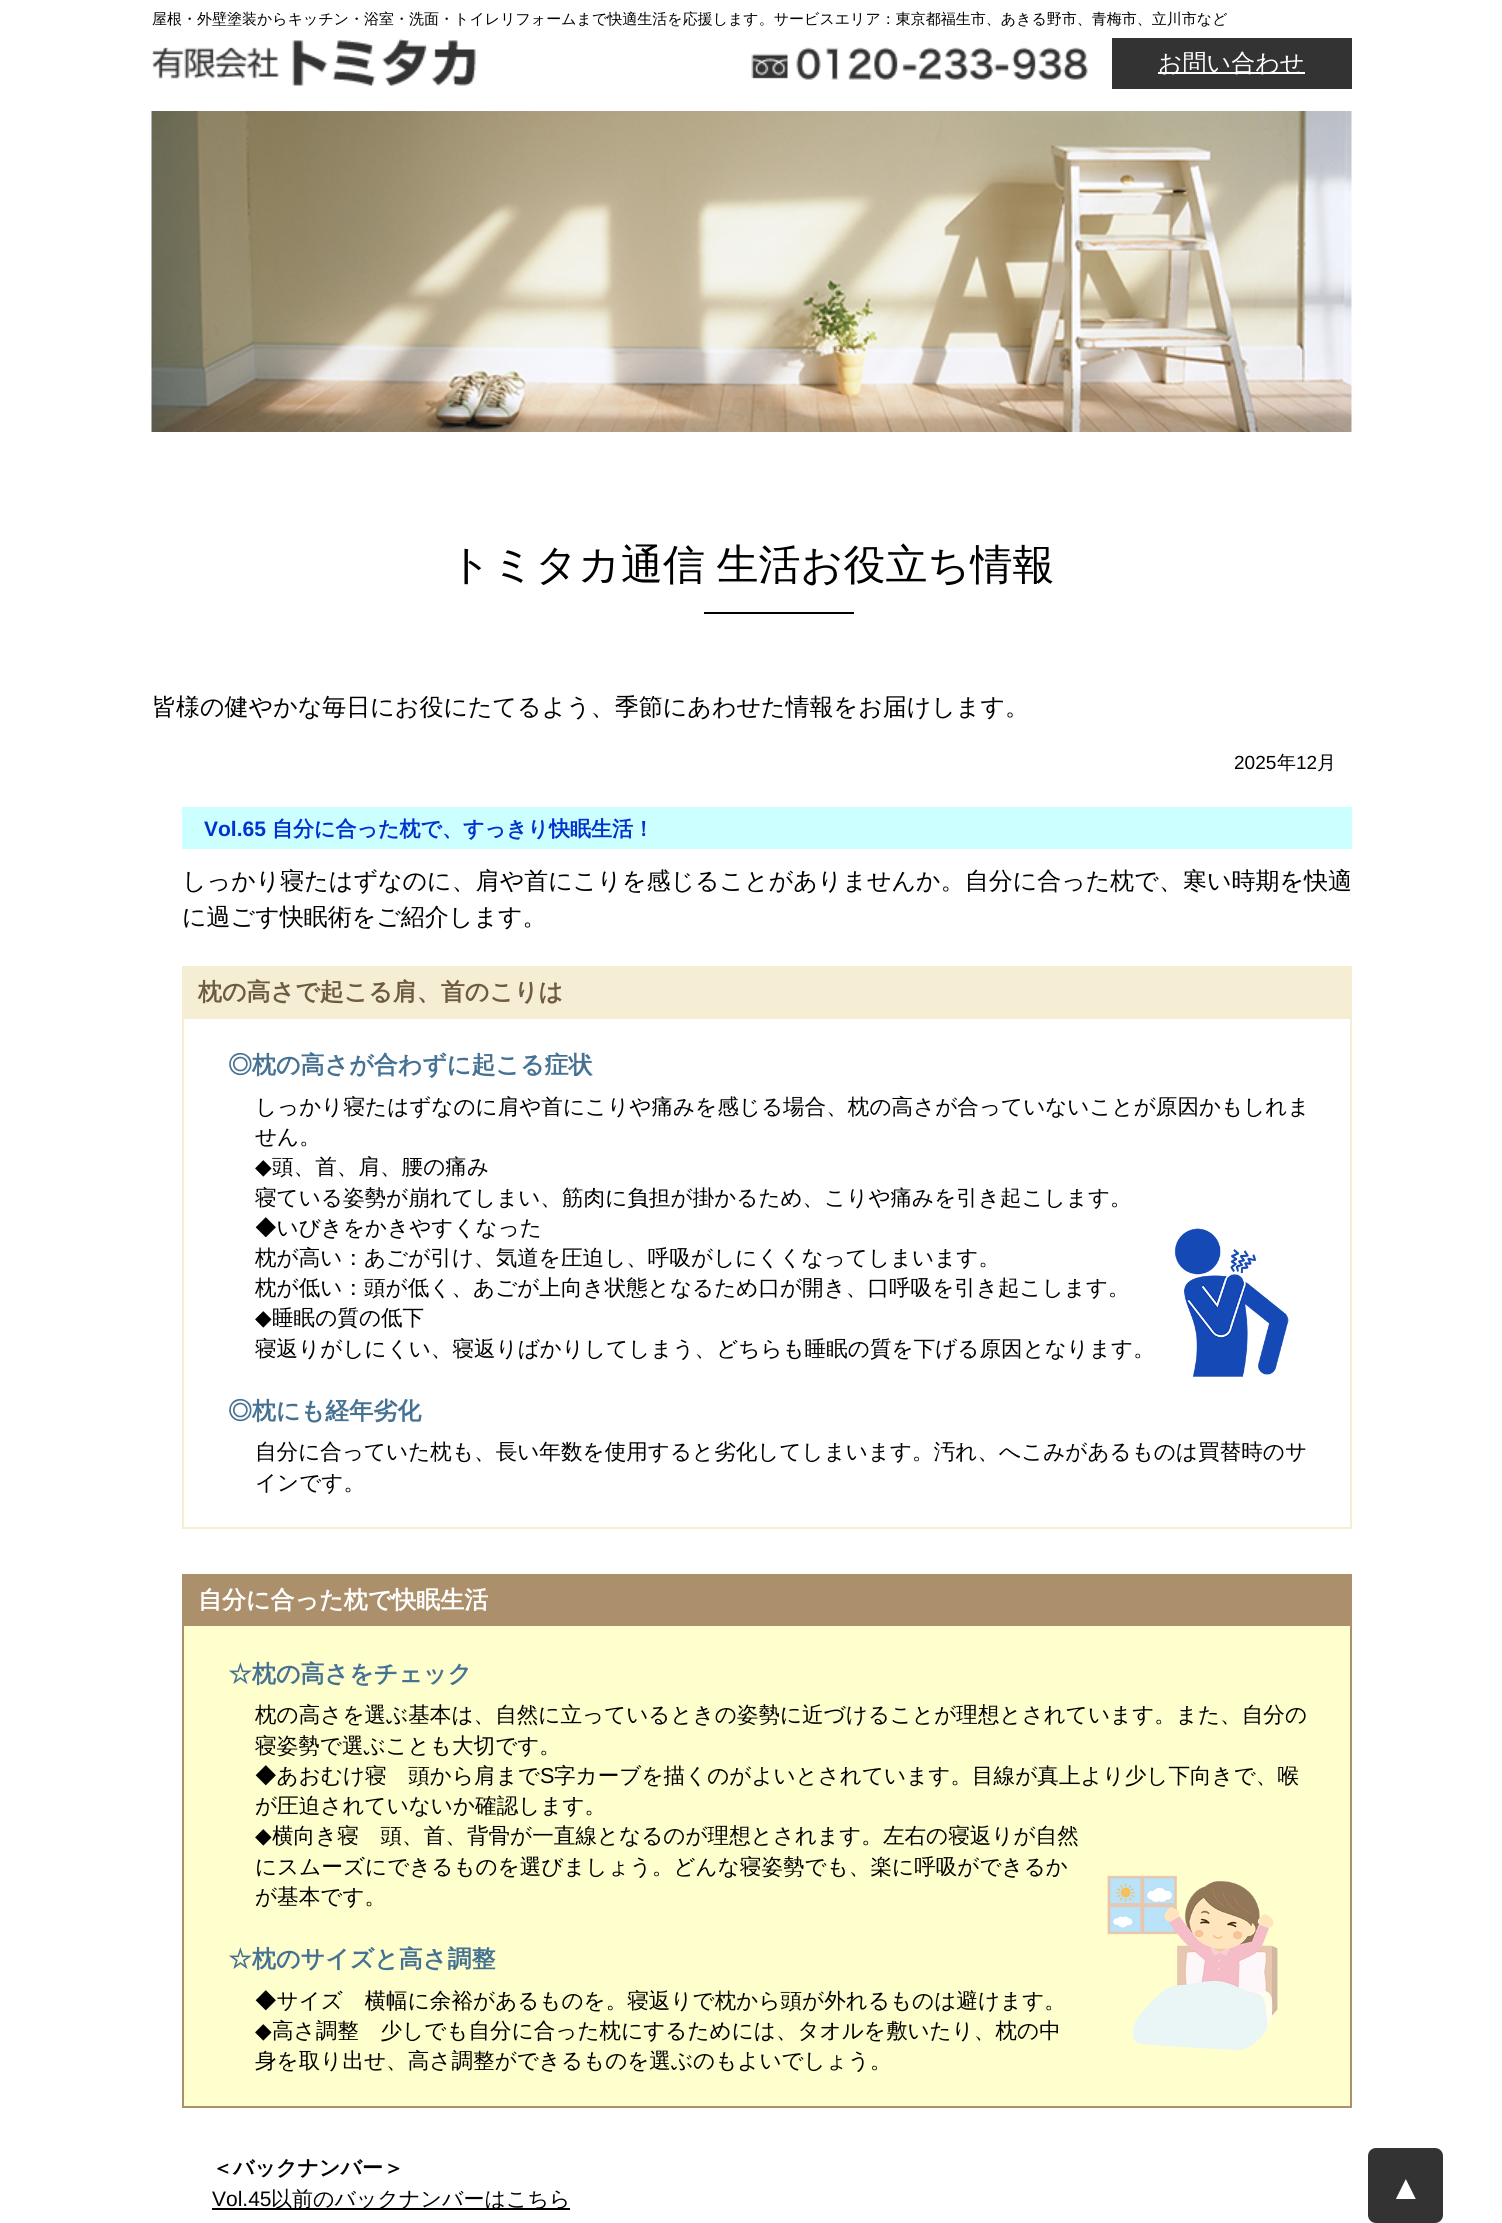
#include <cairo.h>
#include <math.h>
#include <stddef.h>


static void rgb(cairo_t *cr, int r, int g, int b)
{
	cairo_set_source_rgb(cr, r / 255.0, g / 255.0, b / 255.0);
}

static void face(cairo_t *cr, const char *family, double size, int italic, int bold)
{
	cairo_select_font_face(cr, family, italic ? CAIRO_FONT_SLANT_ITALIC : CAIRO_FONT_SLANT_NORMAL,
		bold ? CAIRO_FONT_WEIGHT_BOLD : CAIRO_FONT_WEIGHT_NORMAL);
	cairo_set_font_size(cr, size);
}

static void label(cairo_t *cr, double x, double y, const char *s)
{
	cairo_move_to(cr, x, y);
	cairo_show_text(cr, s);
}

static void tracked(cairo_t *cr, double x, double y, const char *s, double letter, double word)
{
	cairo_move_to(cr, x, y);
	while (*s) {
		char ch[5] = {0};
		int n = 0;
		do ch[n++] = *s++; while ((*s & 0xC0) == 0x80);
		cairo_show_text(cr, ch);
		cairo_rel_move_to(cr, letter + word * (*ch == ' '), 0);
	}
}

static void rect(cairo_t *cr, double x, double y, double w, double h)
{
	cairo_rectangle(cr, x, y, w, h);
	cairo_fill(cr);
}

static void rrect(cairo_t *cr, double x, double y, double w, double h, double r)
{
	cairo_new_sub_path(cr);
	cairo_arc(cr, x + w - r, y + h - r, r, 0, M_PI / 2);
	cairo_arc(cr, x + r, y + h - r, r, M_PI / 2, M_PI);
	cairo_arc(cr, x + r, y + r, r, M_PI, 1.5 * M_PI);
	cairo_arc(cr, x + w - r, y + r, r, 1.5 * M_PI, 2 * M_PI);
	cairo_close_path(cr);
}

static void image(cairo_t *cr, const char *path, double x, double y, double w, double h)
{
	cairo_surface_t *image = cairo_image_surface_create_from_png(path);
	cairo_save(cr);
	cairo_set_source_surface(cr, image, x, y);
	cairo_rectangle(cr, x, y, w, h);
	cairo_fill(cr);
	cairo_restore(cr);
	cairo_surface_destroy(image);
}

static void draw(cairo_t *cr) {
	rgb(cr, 255, 255, 255);
	cairo_paint(cr);
	face(cr, "WenQuanYi Zen Hei Medium", 15, 0, 0);
	rgb(cr, 0, 0, 0);
	label(cr, 152, 24, "屋根・外壁塗装からキッチン・浴室・洗面・トイレリフォームまで快適生活を応援します。サービスエリア：東京都福生市、あきる野市、青梅市、立川市など");
	image(cr, "image0.png", 152, 38, 324, 48);
	image(cr, "image1.png", 751, 47, 337, 33);
	rgb(cr, 51, 51, 51);
	rect(cr, 1112, 38, 240, 51);
	rgb(cr, 255, 255, 255);
	rect(cr, 1158, 72, 147, 2);
	face(cr, "WenQuanYi Zen Hei Medium", 24, 0, 0);
	label(cr, 1158, 71, "お問い合わせ");
	image(cr, "image2.png", 151, 111, 1201, 321);
	face(cr, "WenQuanYi Zen Hei Medium", 42, 0, 0);
	rgb(cr, 0, 0, 0);
	tracked(cr, 449, 579, "トミタカ通信 生活お役立ち情報", 0, -1);
	rect(cr, 704, 612, 150, 2);
	face(cr, "WenQuanYi Zen Hei Medium", 24, 0, 0);
	label(cr, 152, 715, "皆様の健やかな毎日にお役にたてるよう、季節にあわせた情報をお届けします。");
	face(cr, "Liberation Sans", 19, 0, 0);
	label(cr, 1234, 769, "2025");
	face(cr, "WenQuanYi Zen Hei Medium", 19, 0, 0);
	label(cr, 1277, 769, "年");
	face(cr, "Liberation Sans", 19, 0, 0);
	label(cr, 1296, 769, "12");
	face(cr, "WenQuanYi Zen Hei Medium", 19, 0, 0);
	label(cr, 1317, 769, "月");
	rgb(cr, 204, 255, 255);
	rect(cr, 182, 807, 1170, 42);
	face(cr, "Liberation Sans", 21, 0, 1);
	rgb(cr, 0, 51, 204);
	label(cr, 204, 836, "Vol.65");
	face(cr, "WenQuanYi Zen Hei", 21, 0, 1);
	label(cr, 272, 836, "自分に合った枕で、すっきり快眠生活！");
	face(cr, "WenQuanYi Zen Hei Medium", 24, 0, 0);
	rgb(cr, 0, 0, 0);
	label(cr, 182, 889, "しっかり寝たはずなのに、肩や首にこりを感じることがありませんか。自分に合った枕で、寒い時期を快適");
	label(cr, 182, 925, "に過ごす快眠術をご紹介します。");
	cairo_rectangle(cr, 183, 967, 1168, 561);
	rgb(cr, 245, 238, 213);
	cairo_stroke(cr);
	rect(cr, 184, 968, 1166, 51);
	face(cr, "WenQuanYi Zen Hei", 24, 0, 1);
	rgb(cr, 110, 91, 68);
	label(cr, 198, 1000, "枕の高さで起こる肩、首のこりは");
	rgb(cr, 69, 113, 147);
	label(cr, 228, 1073, "◎枕の高さが合わずに起こる症状");
	face(cr, "WenQuanYi Zen Hei Medium", 21.6, 0, 0);
	rgb(cr, 0, 0, 0);
	label(cr, 255, 1114, "しっかり寝たはずなのに肩や首にこりや痛みを感じる場合、枕の高さが合っていないことが原因かもしれま");
	label(cr, 255, 1144, "せん。");
	face(cr, "DejaVu Sans", 21.6, 0, 0);
	label(cr, 255, 1174, "◆");
	face(cr, "WenQuanYi Zen Hei Medium", 21.6, 0, 0);
	label(cr, 272, 1174, "頭、首、肩、腰の痛み");
	label(cr, 255, 1205, "寝ている姿勢が崩れてしまい、筋肉に負担が掛かるため、こりや痛みを引き起こします。");
	label(cr, 255, 1235, "◆いびきをかきやすくなった");
	image(cr, "image3.png", 1174, 1228, 115, 149);
	label(cr, 255, 1265, "枕が高い：あごが引け、気道を圧迫し、呼吸がしにくくなってしまいます。");
	label(cr, 255, 1295, "枕が低い：頭が低く、あごが上向き状態となるため口が開き、口呼吸を引き起こします。");
	face(cr, "DejaVu Sans", 21.6, 0, 0);
	label(cr, 255, 1325, "◆");
	face(cr, "WenQuanYi Zen Hei Medium", 21.6, 0, 0);
	label(cr, 272, 1325, "睡眠の質の低下");
	label(cr, 255, 1356, "寝返りがしにくい、寝返りばかりしてしまう、どちらも睡眠の質を下げる原因となります。");
	face(cr, "WenQuanYi Zen Hei", 24, 0, 1);
	rgb(cr, 69, 113, 147);
	label(cr, 228, 1419, "◎枕にも経年劣化");
	face(cr, "WenQuanYi Zen Hei Medium", 21.6, 0, 0);
	rgb(cr, 0, 0, 0);
	label(cr, 255, 1459, "自分に合っていた枕も、長い年数を使用すると劣化してしまいます。汚れ、へこみがあるものは買替時のサ");
	label(cr, 255, 1490, "インです。");
	rgb(cr, 255, 255, 205);
	rect(cr, 184, 1626, 1166, 480);
	cairo_rectangle(cr, 183, 1575, 1168, 532);
	rgb(cr, 172, 143, 107);
	cairo_stroke(cr);
	rect(cr, 184, 1576, 1166, 50);
	face(cr, "WenQuanYi Zen Hei", 24, 0, 1);
	rgb(cr, 255, 255, 255);
	label(cr, 198, 1608, "自分に合った枕で快眠生活");
	rgb(cr, 69, 113, 147);
	label(cr, 228, 1682, "☆枕の高さをチェック");
	face(cr, "WenQuanYi Zen Hei Medium", 21.6, 0, 0);
	rgb(cr, 0, 0, 0);
	label(cr, 255, 1722, "枕の高さを選ぶ基本は、自然に立っているときの姿勢に近づけることが理想とされています。また、自分の");
	label(cr, 255, 1753, "寝姿勢で選ぶことも大切です。");
	label(cr, 255, 1783, "◆あおむけ寝　頭から肩まで");
	face(cr, "Liberation Sans", 21.6, 0, 0);
	label(cr, 540, 1783, "S");
	face(cr, "WenQuanYi Zen Hei Medium", 21.6, 0, 0);
	label(cr, 554, 1783, "字カーブを描くのがよいとされています。目線が真上より少し下向きで、喉");
	label(cr, 255, 1813, "が圧迫されていないか確認します。");
	face(cr, "DejaVu Sans", 21.6, 0, 0);
	label(cr, 255, 1843, "◆");
	face(cr, "WenQuanYi Zen Hei Medium", 21.6, 0, 0);
	label(cr, 272, 1843, "横向き寝　頭、首、背骨が一直線となるのが理想とされます。左右の寝返りが自然");
	label(cr, 255, 1874, "にスムーズにできるものを選びましょう。どんな寝姿勢でも、楽に呼吸ができるか");
	label(cr, 255, 1904, "が基本です。");
	image(cr, "image4.png", 1107, 1875, 171, 175);
	face(cr, "WenQuanYi Zen Hei", 24, 0, 1);
	rgb(cr, 69, 113, 147);
	label(cr, 228, 1967, "☆枕のサイズと高さ調整");
	face(cr, "WenQuanYi Zen Hei Medium", 21.6, 0, 0);
	rgb(cr, 0, 0, 0);
	label(cr, 255, 2008, "◆サイズ　横幅に余裕があるものを。寝返りで枕から頭が外れるものは避けます。");
	face(cr, "DejaVu Sans", 21.6, 0, 0);
	label(cr, 255, 2038, "◆");
	face(cr, "WenQuanYi Zen Hei Medium", 21.6, 0, 0);
	label(cr, 272, 2038, "高さ調整　少しでも自分に合った枕にするためには、タオルを敷いたり、枕の中");
	label(cr, 255, 2068, "身を取り出せ、高さ調整ができるものを選ぶのもよいでしょう。");
	face(cr, "WenQuanYi Zen Hei", 21, 0, 1);
	label(cr, 212, 2175, "＜バックナンバー＞");
	face(cr, "Liberation Sans", 21, 0, 0);
	label(cr, 212, 2206, "Vol.45");
	rect(cr, 212, 2208, 358, 2);
	face(cr, "WenQuanYi Zen Hei Medium", 21, 0, 0);
	label(cr, 271, 2206, "以前のバックナンバーはこちら");
	rgb(cr, 51, 51, 51);
	rrect(cr, 1368, 2148, 75, 75, 8);
	cairo_fill(cr);
	face(cr, "Liberation Sans", 34, 0, 0);
	rgb(cr, 255, 255, 255);
	label(cr, 1389, 2199, "▲");
}

int main(void) {
	cairo_surface_t *surface = cairo_image_surface_create(CAIRO_FORMAT_RGB24, 1502, 2223);
	cairo_t *cr = cairo_create(surface);
	cairo_font_options_t *options = cairo_font_options_create();
	cairo_font_options_set_hint_metrics(options, CAIRO_HINT_METRICS_OFF);
	cairo_font_options_set_hint_style(options, CAIRO_HINT_STYLE_NONE);
	cairo_set_font_options(cr, options);
	cairo_set_miter_limit(cr, 4);
	draw(cr);
	cairo_surface_write_to_png(surface, "render.png");
	cairo_font_options_destroy(options);
	cairo_destroy(cr);
	cairo_surface_destroy(surface);
	return 0;
}
